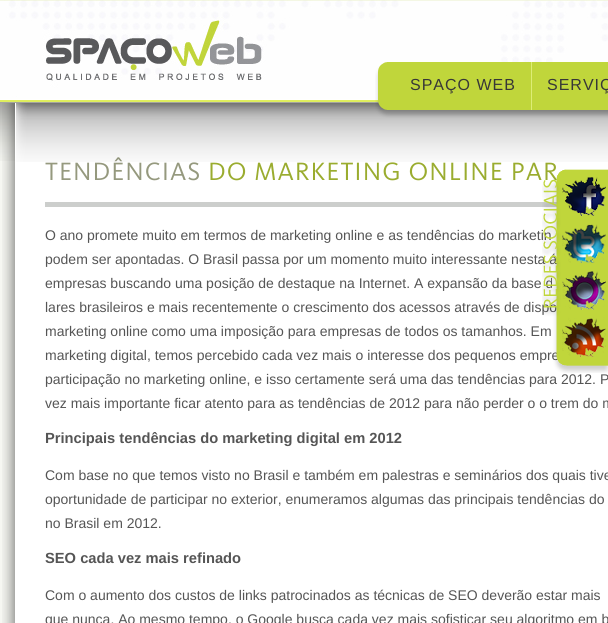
#include <cairo.h>
#include <math.h>
#include <stddef.h>


static void rgb(cairo_t *cr, int r, int g, int b)
{
	cairo_set_source_rgb(cr, r / 255.0, g / 255.0, b / 255.0);
}

static void face(cairo_t *cr, const char *family, double size, int italic, int bold)
{
	cairo_select_font_face(cr, family, italic ? CAIRO_FONT_SLANT_ITALIC : CAIRO_FONT_SLANT_NORMAL,
		bold ? CAIRO_FONT_WEIGHT_BOLD : CAIRO_FONT_WEIGHT_NORMAL);
	cairo_set_font_size(cr, size);
}

static void label(cairo_t *cr, double x, double y, const char *s)
{
	cairo_move_to(cr, x, y);
	cairo_show_text(cr, s);
}

static void tracked(cairo_t *cr, double x, double y, const char *s, double letter, double word)
{
	cairo_move_to(cr, x, y);
	while (*s) {
		char ch[5] = {0};
		int n = 0;
		do ch[n++] = *s++; while ((*s & 0xC0) == 0x80);
		cairo_show_text(cr, ch);
		cairo_rel_move_to(cr, letter + word * (*ch == ' '), 0);
	}
}

static void rect(cairo_t *cr, double x, double y, double w, double h)
{
	cairo_rectangle(cr, x, y, w, h);
	cairo_fill(cr);
}

static void image(cairo_t *cr, const char *path, double x, double y, double w, double h)
{
	cairo_surface_t *image = cairo_image_surface_create_from_png(path);
	cairo_save(cr);
	cairo_set_source_surface(cr, image, x, y);
	cairo_rectangle(cr, x, y, w, h);
	cairo_fill(cr);
	cairo_restore(cr);
	cairo_surface_destroy(image);
}

static void draw(cairo_t *cr) {
	rgb(cr, 246, 247, 242);
	cairo_paint(cr);
	image(cr, "image0.png", 0, 97, 379, 64);
	image(cr, "image1.png", 0, 0, 608, 97);
	image(cr, "image4.png", 2, 103, 606, 520);
	face(cr, "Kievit", 26, 0, 0);
	rgb(cr, 149, 153, 126);
	tracked(cr, 45, 180, "TENDÊNCIAS", 1, 0);
	image(cr, "image5.png", 16, 103, 592, 59);
	image(cr, "image2.png", 375, 62, 20, 56);
	image(cr, "image3.png", 395, 110, 213, 8);
	rgb(cr, 192, 214, 59);
	rect(cr, 395, 62, 136, 48);
	rgb(cr, 221, 237, 118);
	rect(cr, 531, 62, 1, 48);
	face(cr, "Liberation Sans", 16, 0, 0);
	rgb(cr, 55, 55, 55);
	tracked(cr, 410, 90, "SPAÇO WEB", 1, 0);
	rgb(cr, 192, 214, 59);
	rect(cr, 532, 62, 76, 48);
	rgb(cr, 55, 55, 55);
	tracked(cr, 547, 90, "SERVIÇ", 1, 0);
	rgb(cr, 204, 206, 204);
	rect(cr, 45, 202, 512, 5);
	face(cr, "Kievit", 26, 0, 0);
	rgb(cr, 154, 172, 47);
	tracked(cr, 208, 180, "DO MARKETING ONLINE PAR", 1, 0);
	face(cr, "Liberation Sans", 14, 0, 0);
	rgb(cr, 85, 85, 85);
	label(cr, 45, 240, "O ano promete muito em termos de marketing online e as tendências do marketin");
	label(cr, 45, 264, "podem ser apontadas. O Brasil passa por um momento muito interessante nesta á");
	label(cr, 45, 288, "empresas buscando uma posição de destaque na Internet. A expansão da base d");
	label(cr, 45, 312, "lares brasileiros e mais recentemente o crescimento dos acessos através de dispo");
	label(cr, 45, 336, "marketing online como uma imposição para empresas de todos os tamanhos. Em");
	label(cr, 45, 360, "marketing digital, temos percebido cada vez mais o interesse dos pequenos empre");
	label(cr, 45, 384, "participação no marketing online, e isso certamente será uma das tendências para 2012. P");
	label(cr, 45, 408, "vez mais importante ficar atento para as tendências de 2012 para não perder o o trem do m");
	face(cr, "Liberation Sans", 14.7, 0, 1);
	label(cr, 45, 443, "Principais tendências do marketing digital em 2012");
	face(cr, "Liberation Sans", 14, 0, 0);
	label(cr, 45, 480, "Com base no que temos visto no Brasil e também em palestras e seminários dos quais tive");
	label(cr, 45, 504, "oportunidade de participar no exterior, enumeramos algumas das principais tendências do");
	label(cr, 45, 528, "no Brasil em 2012.");
	face(cr, "Liberation Sans", 14.7, 0, 1);
	label(cr, 45, 563, "SEO cada vez mais refinado");
	face(cr, "Liberation Sans", 14, 0, 0);
	label(cr, 45, 600, "Com o aumento dos custos de links patrocinados as técnicas de SEO deverão estar mais");
	label(cr, 45, 624, "que nunca. Ao mesmo tempo, o Google busca cada vez mais sofisticar seu algoritmo em b");
	image(cr, "image6.png", 542, 169, 66, 204);
	image(cr, "image7.png", 562, 177, 44, 39);
	image(cr, "image8.png", 562, 224, 44, 39);
	image(cr, "image9.png", 562, 271, 44, 39);
	image(cr, "image10.png", 562, 317, 44, 40);
}

int main(void) {
	cairo_surface_t *surface = cairo_image_surface_create(CAIRO_FORMAT_RGB24, 608, 623);
	cairo_t *cr = cairo_create(surface);
	cairo_font_options_t *options = cairo_font_options_create();
	cairo_font_options_set_hint_metrics(options, CAIRO_HINT_METRICS_OFF);
	cairo_font_options_set_hint_style(options, CAIRO_HINT_STYLE_NONE);
	cairo_set_font_options(cr, options);
	cairo_set_miter_limit(cr, 4);
	draw(cr);
	cairo_surface_write_to_png(surface, "render.png");
	cairo_font_options_destroy(options);
	cairo_destroy(cr);
	cairo_surface_destroy(surface);
	return 0;
}
